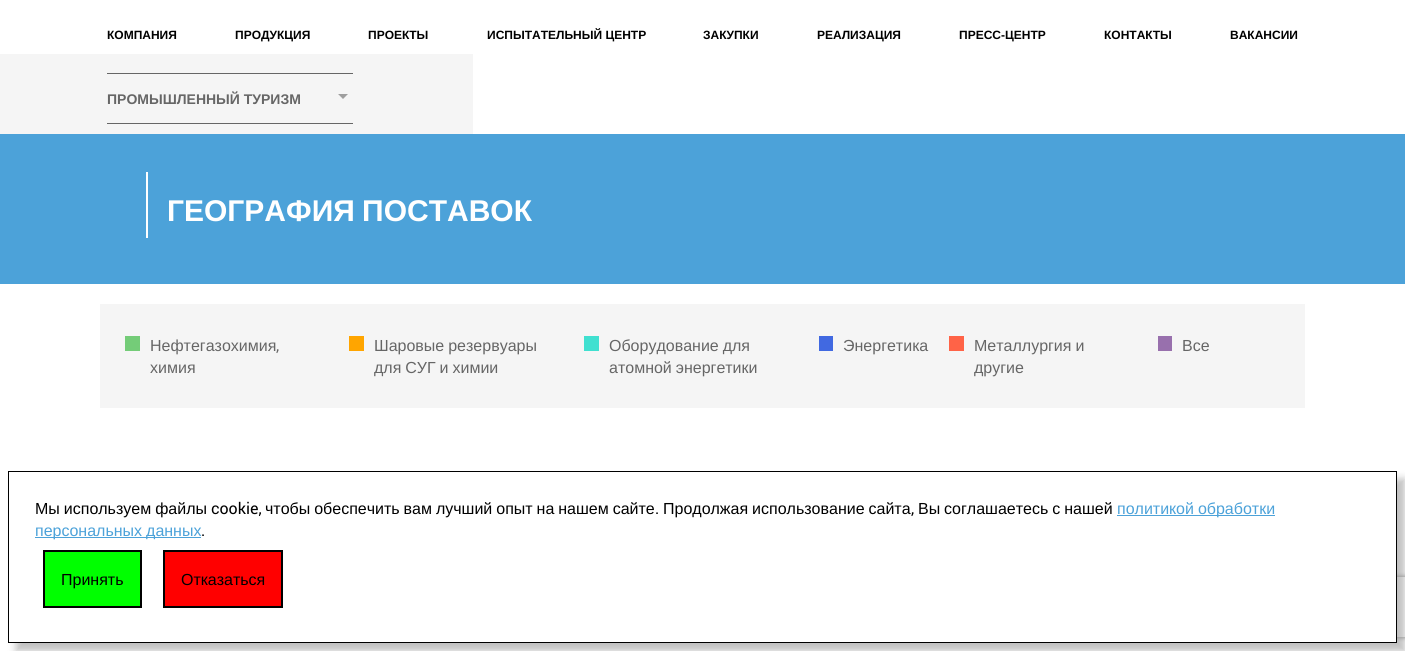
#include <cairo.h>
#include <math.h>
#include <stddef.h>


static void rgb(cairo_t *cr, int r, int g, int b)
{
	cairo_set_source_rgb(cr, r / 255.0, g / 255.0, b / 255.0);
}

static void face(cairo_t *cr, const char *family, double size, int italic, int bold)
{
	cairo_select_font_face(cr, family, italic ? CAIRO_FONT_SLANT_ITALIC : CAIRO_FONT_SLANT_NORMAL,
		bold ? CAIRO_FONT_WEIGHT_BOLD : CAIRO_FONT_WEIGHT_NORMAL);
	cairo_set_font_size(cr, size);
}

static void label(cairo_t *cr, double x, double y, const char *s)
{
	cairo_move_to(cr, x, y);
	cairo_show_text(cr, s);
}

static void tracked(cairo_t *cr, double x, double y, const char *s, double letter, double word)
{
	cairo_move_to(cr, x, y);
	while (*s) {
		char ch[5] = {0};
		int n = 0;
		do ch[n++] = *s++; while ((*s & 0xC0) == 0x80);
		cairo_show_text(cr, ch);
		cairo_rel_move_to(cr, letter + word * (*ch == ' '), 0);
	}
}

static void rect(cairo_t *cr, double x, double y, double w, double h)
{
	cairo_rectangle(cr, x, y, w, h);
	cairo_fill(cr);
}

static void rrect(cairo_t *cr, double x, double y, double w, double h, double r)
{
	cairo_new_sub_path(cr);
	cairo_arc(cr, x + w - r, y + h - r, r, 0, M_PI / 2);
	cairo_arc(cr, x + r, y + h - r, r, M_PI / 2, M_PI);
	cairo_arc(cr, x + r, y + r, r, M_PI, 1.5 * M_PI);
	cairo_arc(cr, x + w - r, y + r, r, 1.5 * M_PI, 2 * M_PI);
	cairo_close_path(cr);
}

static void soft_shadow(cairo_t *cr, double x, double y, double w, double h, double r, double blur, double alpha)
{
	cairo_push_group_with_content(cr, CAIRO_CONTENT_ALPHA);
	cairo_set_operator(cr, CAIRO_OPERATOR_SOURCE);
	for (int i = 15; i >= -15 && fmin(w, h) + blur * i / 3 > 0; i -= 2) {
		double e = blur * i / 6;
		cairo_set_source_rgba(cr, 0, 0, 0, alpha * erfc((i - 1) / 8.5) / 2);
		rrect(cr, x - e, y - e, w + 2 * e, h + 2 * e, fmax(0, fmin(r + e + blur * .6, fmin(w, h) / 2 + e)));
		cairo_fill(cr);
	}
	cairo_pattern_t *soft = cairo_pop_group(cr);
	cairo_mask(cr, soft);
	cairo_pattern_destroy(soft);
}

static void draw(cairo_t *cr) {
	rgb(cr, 255, 255, 255);
	cairo_paint(cr);
	face(cr, "Liberation Sans", 12, 0, 1);
	rgb(cr, 0, 0, 0);
	label(cr, 107, 39, "КОМПАНИЯ");
	label(cr, 235, 39, "ПРОДУКЦИЯ");
	label(cr, 368, 39, "ПРОЕКТЫ");
	label(cr, 487, 39, "ИСПЫТАТЕЛЬНЫЙ ЦЕНТР");
	label(cr, 703, 39, "ЗАКУПКИ");
	label(cr, 817, 39, "РЕАЛИЗАЦИЯ");
	label(cr, 959, 39, "ПРЕСС-ЦЕНТР");
	label(cr, 1104, 39, "КОНТАКТЫ");
	label(cr, 1230, 39, "ВАКАНСИИ");
	rgb(cr, 245, 245, 245);
	rect(cr, 0, 54, 473, 80);
	rgb(cr, 102, 102, 102);
	rect(cr, 107, 73, 246, 1);
	rect(cr, 107, 123, 246, 1);
	face(cr, "Liberation Sans", 14, 0, 1);
	label(cr, 107, 104, "ПРОМЫШЛЕННЫЙ ТУРИЗМ");
	rgb(cr, 158, 158, 158);
	cairo_new_path(cr);
	cairo_move_to(cr, 338, 94);
	cairo_line_to(cr, 348, 94);
	cairo_line_to(cr, 343, 99);
	cairo_close_path(cr);
	cairo_fill(cr);
	rgb(cr, 76, 162, 217);
	rect(cr, 0, 134, 1405, 150);
	rgb(cr, 255, 255, 255);
	rect(cr, 146, 172, 2, 66);
	face(cr, "Liberation Sans", 30, 0, 1);
	tracked(cr, 167, 221, "ГЕОГРАФИЯ ПОСТАВОК", 0, -1);
	rgb(cr, 245, 245, 245);
	rect(cr, 100, 304, 1205, 104);
	rgb(cr, 116, 204, 120);
	rect(cr, 125, 336, 15, 15);
	face(cr, "Liberation Sans", 16, 0, 0);
	rgb(cr, 102, 102, 102);
	label(cr, 150, 351, "Нефтегазохимия");
	face(cr, "Roboto", 16, 0, 0);
	label(cr, 276, 351, ",");
	face(cr, "Liberation Sans", 16, 0, 0);
	label(cr, 150, 373, "химия");
	rgb(cr, 255, 165, 0);
	rect(cr, 349, 336, 15, 15);
	rgb(cr, 102, 102, 102);
	tracked(cr, 374, 351, "Шаровые резервуары", 0, -0.5);
	tracked(cr, 374, 373, "для СУГ и химии", 0, -0.5);
	rgb(cr, 64, 224, 208);
	rect(cr, 584, 336, 15, 15);
	rgb(cr, 102, 102, 102);
	tracked(cr, 609, 351, "Оборудование для", 0, -0.5);
	tracked(cr, 609, 373, "атомной энергетики", 0, -0.5);
	rgb(cr, 65, 105, 225);
	rect(cr, 819, 336, 14, 15);
	rgb(cr, 102, 102, 102);
	label(cr, 843, 351, "Энергетика");
	rgb(cr, 255, 99, 71);
	rect(cr, 949, 336, 15, 15);
	rgb(cr, 102, 102, 102);
	tracked(cr, 974, 351, "Металлургия и", 0, -0.5);
	label(cr, 974, 373, "другие");
	rgb(cr, 152, 112, 173);
	rect(cr, 1158, 336, 14, 15);
	rgb(cr, 102, 102, 102);
	label(cr, 1182, 351, "Все");
	rgb(cr, 192, 192, 192);
	soft_shadow(cr, 16, 479, 1389, 172, 0, 4, 1);
	cairo_save(cr);
	cairo_set_fill_rule(cr, CAIRO_FILL_RULE_EVEN_ODD);
	cairo_new_path(cr);
	cairo_move_to(cr, 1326, 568);
	cairo_line_to(cr, 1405, 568);
	cairo_line_to(cr, 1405, 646);
	cairo_line_to(cr, 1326, 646);
	cairo_close_path(cr);
	cairo_move_to(cr, 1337, 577);
	cairo_line_to(cr, 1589, 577);
	cairo_curve_to(cr, 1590, 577, 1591, 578, 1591, 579);
	cairo_line_to(cr, 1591, 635);
	cairo_curve_to(cr, 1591, 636, 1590, 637, 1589, 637);
	cairo_line_to(cr, 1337, 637);
	cairo_curve_to(cr, 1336, 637, 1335, 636, 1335, 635);
	cairo_line_to(cr, 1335, 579);
	cairo_curve_to(cr, 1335, 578, 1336, 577, 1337, 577);
	cairo_close_path(cr);
	cairo_clip(cr);
	rgb(cr, 128, 128, 128);
	soft_shadow(cr, 1335, 577, 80, 60, 2, 2.5, 1);
	cairo_restore(cr);
	rgb(cr, 255, 255, 255);
	cairo_rectangle(cr, 8.5, 471.5, 1388, 171);
	cairo_fill_preserve(cr);
	rgb(cr, 0, 0, 0);
	cairo_set_line_width(cr, 1);
	cairo_stroke(cr);
	tracked(cr, 35, 514, "Мы используем файлы", 0, -0.5);
	face(cr, "Roboto", 16, 0, 0);
	label(cr, 211, 514, "cookie,");
	face(cr, "Liberation Sans", 16, 0, 0);
	tracked(cr, 265, 514, "чтобы обеспечить вам лучший опыт на нашем сайте", 0, -0.5);
	face(cr, "Roboto", 16, 0, 0);
	label(cr, 655, 514, ".");
	face(cr, "Liberation Sans", 16, 0, 0);
	tracked(cr, 663, 514, "Продолжая использование сайта", 0, -0.5);
	face(cr, "Roboto", 16, 0, 0);
	label(cr, 911, 514, ",");
	face(cr, "Liberation Sans", 16, 0, 0);
	tracked(cr, 918, 514, "Вы соглашаетесь с нашей", 0, -0.5);
	rgb(cr, 76, 162, 217);
	rect(cr, 1117, 515, 158, 1);
	tracked(cr, 1117, 514, "политикой обработки", 0, -0.5);
	rect(cr, 35, 537, 166, 1);
	tracked(cr, 35, 536, "персональных данных", 0, -0.5);
	face(cr, "Roboto", 16, 0, 0);
	rgb(cr, 0, 0, 0);
	label(cr, 201, 536, ".");
	rgb(cr, 0, 255, 0);
	cairo_rectangle(cr, 44, 551, 97, 56);
	cairo_fill_preserve(cr);
	rgb(cr, 0, 0, 0);
	cairo_set_line_width(cr, 2);
	cairo_stroke(cr);
	face(cr, "Liberation Sans", 16, 0, 0);
	label(cr, 61, 585, "Принять");
	rgb(cr, 255, 0, 0);
	cairo_rectangle(cr, 164, 551, 118, 56);
	cairo_fill_preserve(cr);
	rgb(cr, 0, 0, 0);
	cairo_stroke(cr);
	label(cr, 181, 585, "Отказаться");
}

int main(void) {
	cairo_surface_t *surface = cairo_image_surface_create(CAIRO_FORMAT_RGB24, 1405, 651);
	cairo_t *cr = cairo_create(surface);
	cairo_font_options_t *options = cairo_font_options_create();
	cairo_font_options_set_hint_metrics(options, CAIRO_HINT_METRICS_OFF);
	cairo_font_options_set_hint_style(options, CAIRO_HINT_STYLE_NONE);
	cairo_set_font_options(cr, options);
	cairo_set_miter_limit(cr, 4);
	draw(cr);
	cairo_surface_write_to_png(surface, "render.png");
	cairo_font_options_destroy(options);
	cairo_destroy(cr);
	cairo_surface_destroy(surface);
	return 0;
}
